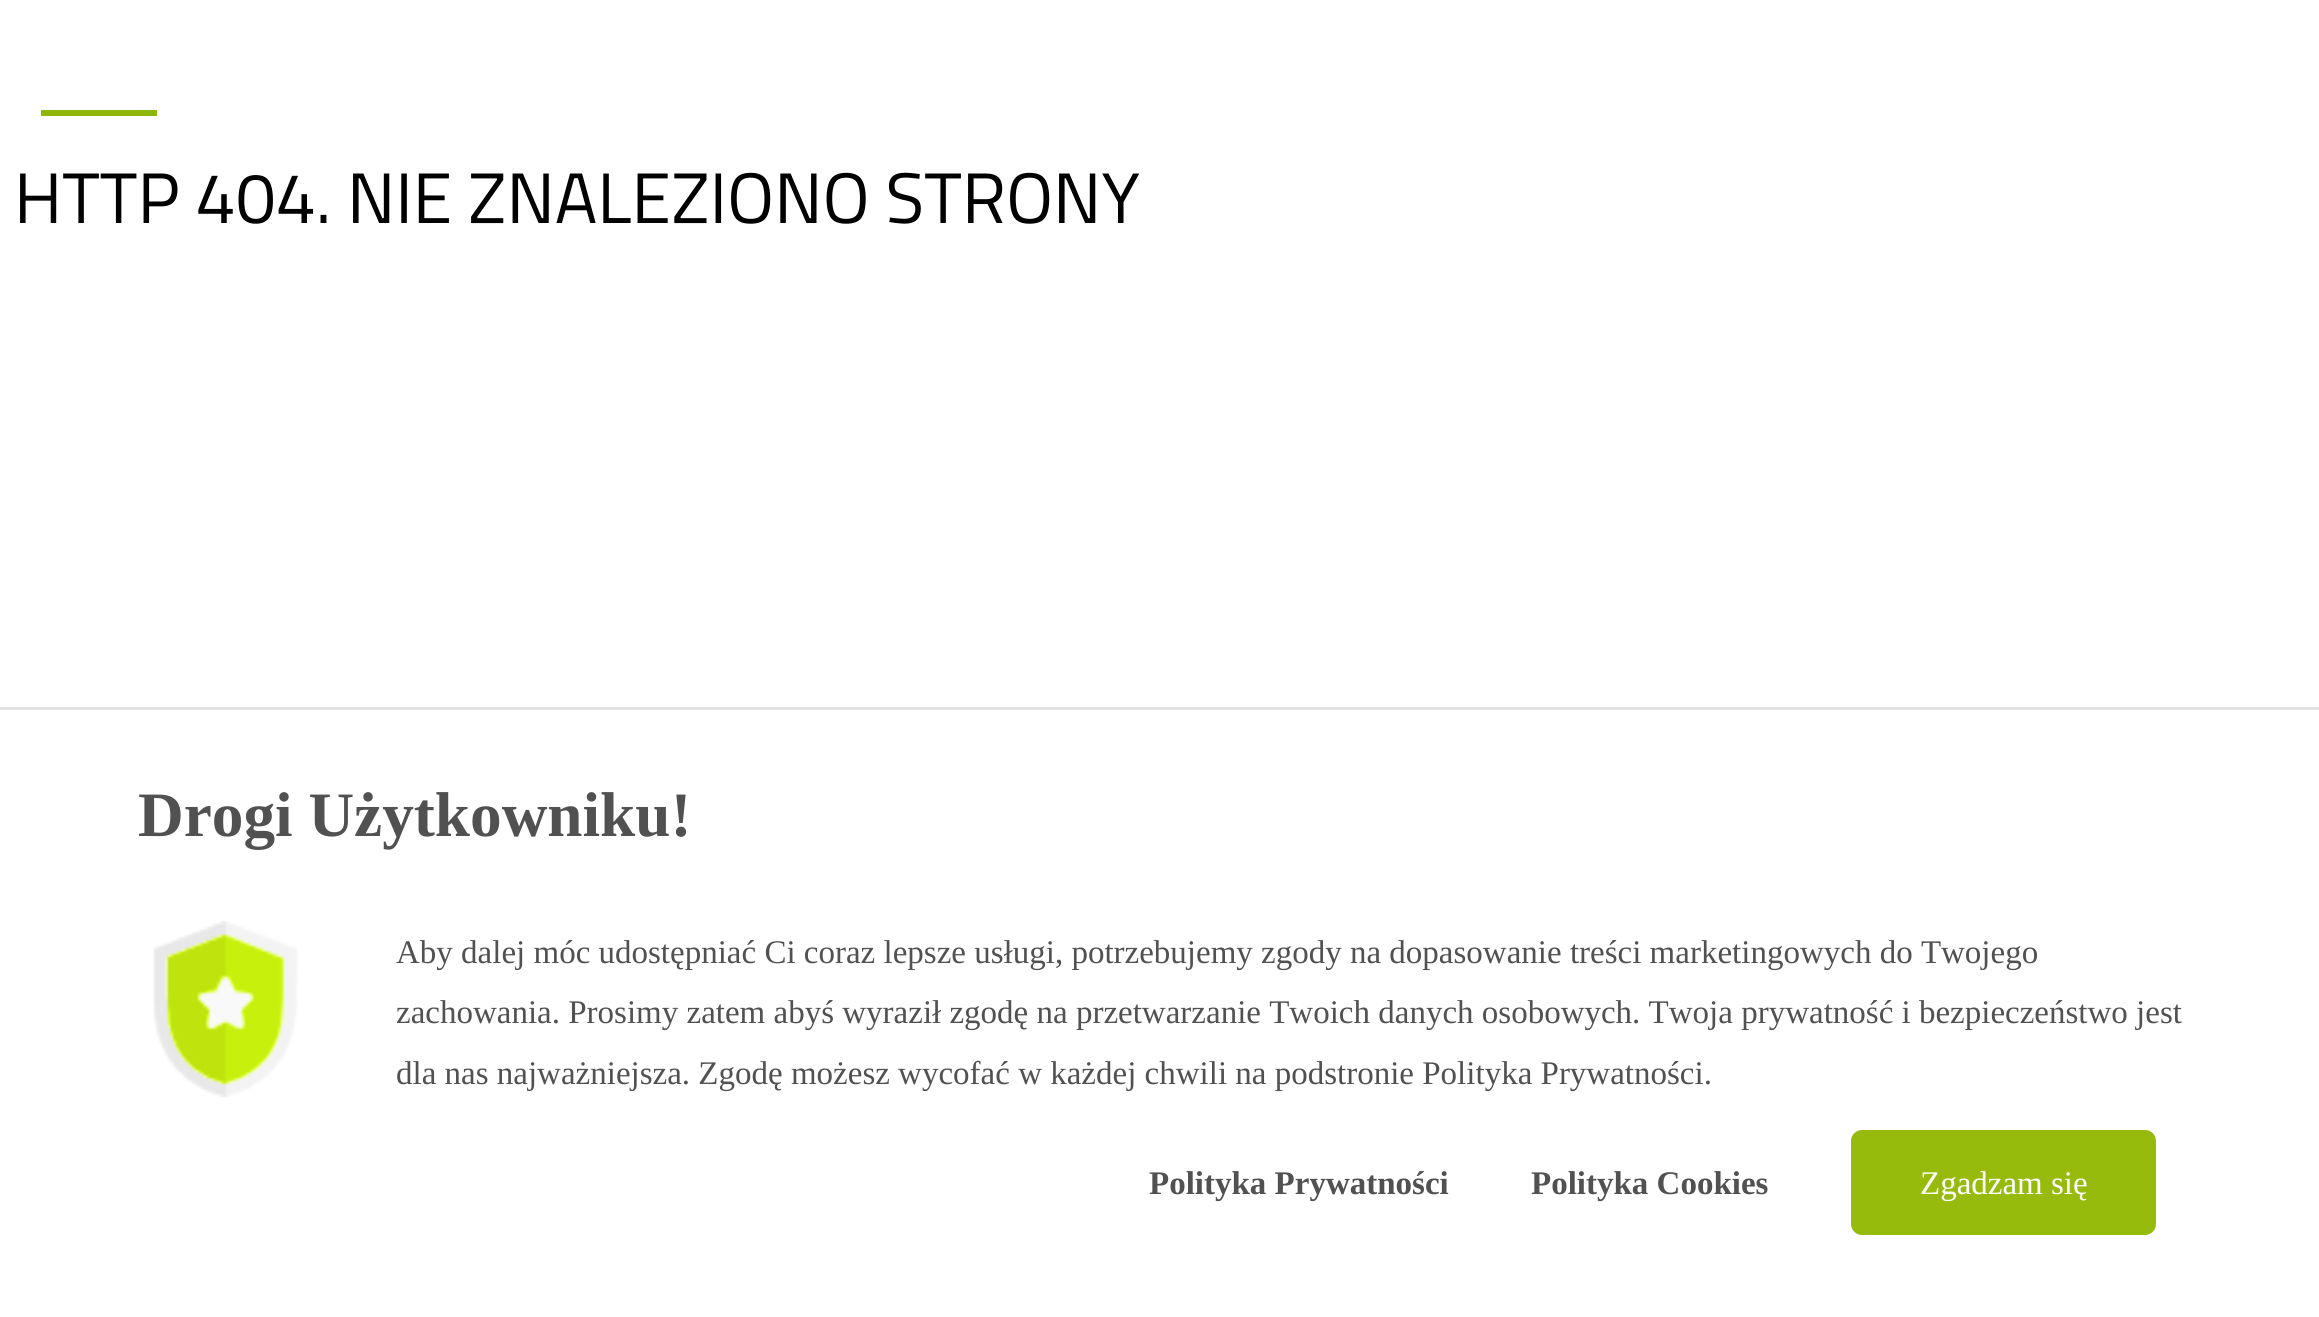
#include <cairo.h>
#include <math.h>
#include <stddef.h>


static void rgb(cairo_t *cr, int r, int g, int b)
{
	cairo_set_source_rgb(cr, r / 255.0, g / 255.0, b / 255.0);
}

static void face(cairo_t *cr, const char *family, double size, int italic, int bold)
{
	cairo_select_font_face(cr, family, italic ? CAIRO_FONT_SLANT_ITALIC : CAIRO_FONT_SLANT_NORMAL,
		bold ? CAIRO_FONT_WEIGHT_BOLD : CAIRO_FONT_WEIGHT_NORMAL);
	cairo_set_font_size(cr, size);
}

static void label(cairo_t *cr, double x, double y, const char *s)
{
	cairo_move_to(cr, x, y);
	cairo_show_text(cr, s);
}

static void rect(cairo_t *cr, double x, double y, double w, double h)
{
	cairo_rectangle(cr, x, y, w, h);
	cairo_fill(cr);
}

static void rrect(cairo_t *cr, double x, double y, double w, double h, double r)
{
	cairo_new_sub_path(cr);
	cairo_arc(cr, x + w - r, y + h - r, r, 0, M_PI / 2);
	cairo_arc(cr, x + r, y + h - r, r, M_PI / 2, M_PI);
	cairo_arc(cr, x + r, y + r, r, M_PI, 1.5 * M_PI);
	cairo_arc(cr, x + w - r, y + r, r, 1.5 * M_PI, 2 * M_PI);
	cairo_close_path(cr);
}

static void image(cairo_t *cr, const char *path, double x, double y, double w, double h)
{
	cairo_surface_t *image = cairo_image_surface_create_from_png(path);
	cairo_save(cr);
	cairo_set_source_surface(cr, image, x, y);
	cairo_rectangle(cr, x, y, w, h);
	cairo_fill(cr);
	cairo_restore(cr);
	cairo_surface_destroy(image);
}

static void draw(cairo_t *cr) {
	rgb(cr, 255, 255, 255);
	cairo_paint(cr);
	rgb(cr, 143, 183, 9);
	rect(cr, 41, 110, 116, 6);
	face(cr, "Titillium Web", 71.5, 0, 0);
	rgb(cr, 0, 0, 0);
	label(cr, 14, 223, "HTTP 404. NIE ZNALEZIONO STRONY");
	rgb(cr, 227, 227, 227);
	rect(cr, 0, 707, 2319, 3);
	face(cr, "Liberation Serif", 63.25, 0, 1);
	rgb(cr, 81, 81, 81);
	label(cr, 138, 836, "Drogi Użytkowniku!");
	image(cr, "image0.png", 153, 921, 145, 177);
	face(cr, "Liberation Serif", 33, 0, 0);
	label(cr, 396, 963, "Aby dalej móc udostępniać Ci coraz lepsze usługi, potrzebujemy zgody na dopasowanie treści marketingowych do Twojego");
	label(cr, 396, 1023, "zachowania. Prosimy zatem abyś wyraził zgodę na przetwarzanie Twoich danych osobowych. Twoja prywatność i bezpieczeństwo jest");
	label(cr, 396, 1084, "dla nas najważniejsza. Zgodę możesz wycofać w każdej chwili na podstronie Polityka Prywatności.");
	face(cr, "Liberation Serif", 33, 0, 1);
	label(cr, 1149, 1194, "Polityka Prywatności");
	label(cr, 1531, 1194, "Polityka Cookies");
	rgb(cr, 151, 187, 13);
	rrect(cr, 1851, 1130, 305, 105, 11);
	cairo_fill(cr);
	face(cr, "Liberation Serif", 33, 0, 0);
	rgb(cr, 255, 255, 255);
	label(cr, 1920, 1194, "Zgadzam się");
}

int main(void) {
	cairo_surface_t *surface = cairo_image_surface_create(CAIRO_FORMAT_RGB24, 2319, 1317);
	cairo_t *cr = cairo_create(surface);
	cairo_font_options_t *options = cairo_font_options_create();
	cairo_font_options_set_hint_metrics(options, CAIRO_HINT_METRICS_OFF);
	cairo_font_options_set_hint_style(options, CAIRO_HINT_STYLE_NONE);
	cairo_set_font_options(cr, options);
	cairo_set_miter_limit(cr, 4);
	draw(cr);
	cairo_surface_write_to_png(surface, "render.png");
	cairo_font_options_destroy(options);
	cairo_destroy(cr);
	cairo_surface_destroy(surface);
	return 0;
}
